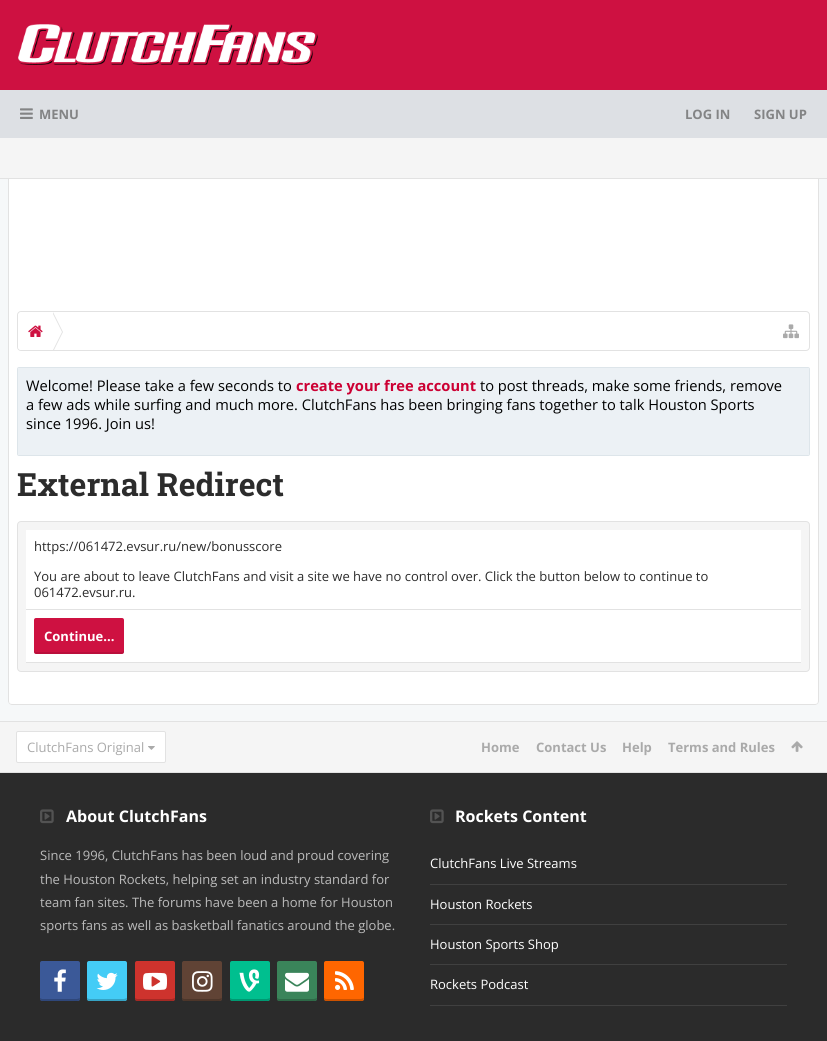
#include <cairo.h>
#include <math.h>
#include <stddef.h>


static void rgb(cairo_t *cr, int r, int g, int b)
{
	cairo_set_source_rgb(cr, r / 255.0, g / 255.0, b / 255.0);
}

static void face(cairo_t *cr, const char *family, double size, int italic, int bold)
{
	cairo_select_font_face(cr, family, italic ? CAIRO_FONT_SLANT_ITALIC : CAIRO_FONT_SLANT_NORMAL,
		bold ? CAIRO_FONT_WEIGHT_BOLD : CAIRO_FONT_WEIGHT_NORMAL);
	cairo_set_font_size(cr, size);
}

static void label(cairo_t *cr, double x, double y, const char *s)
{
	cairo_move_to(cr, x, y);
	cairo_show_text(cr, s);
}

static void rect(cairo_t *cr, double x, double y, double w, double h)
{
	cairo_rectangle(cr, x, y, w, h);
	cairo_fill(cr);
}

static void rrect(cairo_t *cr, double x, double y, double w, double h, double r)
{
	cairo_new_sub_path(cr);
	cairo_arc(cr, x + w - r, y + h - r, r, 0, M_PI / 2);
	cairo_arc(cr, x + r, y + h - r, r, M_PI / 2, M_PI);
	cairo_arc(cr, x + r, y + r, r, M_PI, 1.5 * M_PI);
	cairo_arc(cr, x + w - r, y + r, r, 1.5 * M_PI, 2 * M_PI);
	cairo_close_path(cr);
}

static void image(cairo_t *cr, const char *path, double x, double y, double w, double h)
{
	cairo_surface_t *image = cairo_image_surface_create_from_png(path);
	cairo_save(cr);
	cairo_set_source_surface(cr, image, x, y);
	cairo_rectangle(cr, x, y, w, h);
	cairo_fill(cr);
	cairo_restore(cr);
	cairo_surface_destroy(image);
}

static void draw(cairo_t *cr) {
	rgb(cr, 246, 248, 249);
	cairo_paint(cr);
	rgb(cr, 206, 17, 65);
	rect(cr, 0, 0, 827, 90);
	image(cr, "image0.png", 18, 24, 300, 41);
	rgb(cr, 221, 224, 228);
	rect(cr, 0, 90, 827, 48);
	image(cr, "image1.png", 20, 108, 13, 11);
	face(cr, "Open Sans", 13, 0, 1);
	rgb(cr, 131, 132, 133);
	label(cr, 39, 119, "MENU");
	rgb(cr, 245, 245, 245);
	rect(cr, 0, 138, 827, 40);
	rgb(cr, 226, 226, 226);
	rect(cr, 0, 178, 827, 1);
	rgb(cr, 131, 132, 133);
	label(cr, 685, 119, "LOG IN");
	label(cr, 754, 119, "SIGN UP");
	rgb(cr, 255, 255, 255);
	cairo_new_path(cr);
	cairo_move_to(cr, 8, 179);
	cairo_line_to(cr, 819, 179);
	cairo_line_to(cr, 819, 701);
	cairo_curve_to(cr, 819, 703, 817, 705, 815, 705);
	cairo_line_to(cr, 12, 705);
	cairo_curve_to(cr, 10, 705, 8, 703, 8, 701);
	cairo_close_path(cr);
	cairo_fill(cr);
	rgb(cr, 226, 226, 226);
	cairo_set_fill_rule(cr, CAIRO_FILL_RULE_EVEN_ODD);
	cairo_new_path(cr);
	cairo_move_to(cr, 8, 179);
	cairo_line_to(cr, 819, 179);
	cairo_line_to(cr, 819, 701);
	cairo_curve_to(cr, 819, 703, 817, 705, 815, 705);
	cairo_line_to(cr, 12, 705);
	cairo_curve_to(cr, 10, 705, 8, 703, 8, 701);
	cairo_close_path(cr);
	cairo_move_to(cr, 9, 179);
	cairo_line_to(cr, 818, 179);
	cairo_line_to(cr, 818, 701);
	cairo_curve_to(cr, 818, 703, 817, 704, 815, 704);
	cairo_line_to(cr, 12, 704);
	cairo_curve_to(cr, 10, 704, 9, 703, 9, 701);
	cairo_close_path(cr);
	cairo_fill(cr);
	rrect(cr, 17.5, 311.5, 792, 39, 3.5);
	cairo_set_line_width(cr, 1);
	cairo_stroke(cr);
	cairo_save(cr);
	cairo_set_fill_rule(cr, CAIRO_FILL_RULE_WINDING);
	rrect(cr, 18, 312, 791, 38, 3);
	cairo_clip(cr);
	rgb(cr, 255, 255, 255);
	cairo_new_path(cr);
	cairo_move_to(cr, 22, 312);
	cairo_line_to(cr, 53, 312);
	cairo_line_to(cr, 53, 351);
	cairo_line_to(cr, 22, 351);
	cairo_curve_to(cr, 20, 351, 18, 349, 18, 347);
	cairo_line_to(cr, 18, 316);
	cairo_curve_to(cr, 18, 314, 20, 312, 22, 312);
	cairo_close_path(cr);
	cairo_fill(cr);
	cairo_restore(cr);
	image(cr, "image2.png", 28, 325, 15, 12);
	cairo_set_fill_rule(cr, CAIRO_FILL_RULE_WINDING);
	cairo_new_path(cr);
	cairo_move_to(cr, 54, 350);
	cairo_line_to(cr, 53, 350);
	cairo_line_to(cr, 53, 312);
	cairo_line_to(cr, 63, 332);
	cairo_close_path(cr);
	cairo_fill(cr);
	rgb(cr, 255, 255, 255);
	cairo_new_path(cr);
	cairo_move_to(cr, 53, 350);
	cairo_line_to(cr, 52, 350);
	cairo_line_to(cr, 52, 312);
	cairo_line_to(cr, 62, 332);
	cairo_close_path(cr);
	cairo_fill(cr);
	image(cr, "image3.png", 783, 324, 16, 15);
	rrect(cr, 17.5, 367.5, 792, 88, 1.5);
	rgb(cr, 221, 229, 234);
	cairo_stroke(cr);
	rgb(cr, 236, 241, 245);
	rect(cr, 18, 368, 791, 87);
	face(cr, "Open Sans", 14.65, 0, 0);
	rgb(cr, 0, 0, 0);
	label(cr, 26, 391, "Welcome! Please take a few seconds to");
	face(cr, "Open Sans", 14.65, 0, 1);
	rgb(cr, 204, 0, 51);
	label(cr, 296, 391, "create your free account");
	face(cr, "Open Sans", 14.65, 0, 0);
	rgb(cr, 0, 0, 0);
	label(cr, 480, 391, "to post threads, make some friends, remove");
	label(cr, 26, 410, "a few ads while surfing and much more. ClutchFans has been bringing fans together to talk Houston Sports");
	label(cr, 26, 429, "since 1996. Join us!");
	face(cr, "Roboto Slab", 32, 0, 1);
	rgb(cr, 44, 44, 44);
	label(cr, 17, 496, "External Redirect");
	rgb(cr, 245, 245, 245);
	rrect(cr, 17.5, 521.5, 792, 150, 3.5);
	cairo_fill_preserve(cr);
	rgb(cr, 226, 226, 226);
	cairo_stroke(cr);
	rgb(cr, 255, 255, 255);
	rect(cr, 26, 530, 775, 79);
	rgb(cr, 226, 226, 226);
	rect(cr, 26, 609, 775, 1);
	face(cr, "Open Sans", 13, 0, 0);
	rgb(cr, 44, 44, 44);
	label(cr, 34, 551, "https://061472.evsur.ru/new/bonusscore");
	label(cr, 34, 581, "You are about to leave ClutchFans and visit a site we have no control over. Click the button below to continue to");
	label(cr, 34, 597, "061472.evsur.ru.");
	rgb(cr, 255, 255, 255);
	rect(cr, 26, 610, 775, 52);
	rgb(cr, 226, 226, 226);
	rect(cr, 26, 662, 775, 1);
	rgb(cr, 206, 17, 65);
	rrect(cr, 34, 618, 90, 36, 2);
	cairo_fill(cr);
	cairo_set_source_rgba(cr, 0, 0, 0, 0.1);
	cairo_new_path(cr);
	cairo_move_to(cr, 34, 650);
	cairo_line_to(cr, 34, 652);
	cairo_curve_to(cr, 34, 653, 35, 654, 36, 654);
	cairo_line_to(cr, 122, 654);
	cairo_curve_to(cr, 123, 654, 124, 653, 124, 652);
	cairo_line_to(cr, 124, 650);
	cairo_curve_to(cr, 124, 651, 123, 652, 122, 652);
	cairo_line_to(cr, 36, 652);
	cairo_curve_to(cr, 35, 652, 34, 651, 34, 650);
	cairo_close_path(cr);
	cairo_fill(cr);
	face(cr, "Open Sans", 13, 0, 1);
	rgb(cr, 255, 255, 255);
	label(cr, 44, 641, "Continue...");
	rgb(cr, 245, 245, 245);
	rect(cr, 0, 722, 827, 50);
	rgb(cr, 226, 226, 226);
	rect(cr, 0, 721, 827, 1);
	rect(cr, 0, 772, 827, 1);
	rgb(cr, 255, 255, 255);
	rrect(cr, 16.5, 731.5, 149, 31, 1.5);
	cairo_fill_preserve(cr);
	rgb(cr, 226, 226, 226);
	cairo_stroke(cr);
	face(cr, "Open Sans", 13, 0, 0);
	rgb(cr, 170, 170, 170);
	label(cr, 27, 752, "ClutchFans Original");
	image(cr, "image4.png", 148, 746, 7, 4);
	face(cr, "Open Sans", 13, 0, 1);
	label(cr, 481, 752, "Home");
	label(cr, 536, 752, "Contact Us");
	label(cr, 622, 752, "Help");
	label(cr, 668, 752, "Terms and Rules");
	image(cr, "image5.png", 791, 741, 12, 11);
	rgb(cr, 43, 43, 43);
	rect(cr, 0, 773, 827, 268);
	image(cr, "image6.png", 40, 809, 14, 15);
	face(cr, "Open Sans", 16, 0, 1);
	rgb(cr, 255, 255, 255);
	label(cr, 66, 822, "About ClutchFans");
	face(cr, "Open Sans", 13, 0, 0);
	rgb(cr, 187, 187, 187);
	label(cr, 40, 860, "Since 1996, ClutchFans has been loud and proud covering");
	label(cr, 40, 884, "the Houston Rockets, helping set an industry standard for");
	label(cr, 40, 907, "team fan sites. The forums have been a home for Houston");
	label(cr, 40, 930, "sports fans as well as basketball fanatics around the globe.");
	rgb(cr, 59, 89, 152);
	rrect(cr, 40, 961, 40, 40, 2);
	cairo_fill(cr);
	cairo_set_source_rgba(cr, 0, 0, 0, 0.2);
	cairo_new_path(cr);
	cairo_move_to(cr, 40, 998);
	cairo_curve_to(cr, 40, 1002, 43, 1001, 48, 1001);
	cairo_line_to(cr, 72, 1001);
	cairo_curve_to(cr, 77, 1001, 80, 1002, 80, 997);
	cairo_line_to(cr, 80, 998);
	cairo_line_to(cr, 77, 999);
	cairo_line_to(cr, 42, 999);
	cairo_close_path(cr);
	cairo_fill(cr);
	image(cr, "image7.png", 54, 969, 12, 23);
	rgb(cr, 68, 204, 246);
	rrect(cr, 87, 961, 40, 40, 2);
	cairo_fill(cr);
	cairo_set_source_rgba(cr, 0, 0, 0, 0.2);
	cairo_new_path(cr);
	cairo_move_to(cr, 87, 998);
	cairo_curve_to(cr, 87, 1002, 90, 1001, 95, 1001);
	cairo_line_to(cr, 119, 1001);
	cairo_curve_to(cr, 124, 1001, 127, 1002, 127, 997);
	cairo_line_to(cr, 127, 998);
	cairo_line_to(cr, 124, 999);
	cairo_line_to(cr, 89, 999);
	cairo_close_path(cr);
	cairo_fill(cr);
	image(cr, "image8.png", 96, 972, 22, 18);
	rgb(cr, 206, 51, 45);
	rrect(cr, 135, 961, 40, 40, 2);
	cairo_fill(cr);
	cairo_set_source_rgba(cr, 0, 0, 0, 0.2);
	cairo_new_path(cr);
	cairo_move_to(cr, 135, 998);
	cairo_curve_to(cr, 135, 1002, 138, 1001, 143, 1001);
	cairo_line_to(cr, 167, 1001);
	cairo_curve_to(cr, 172, 1001, 175, 1002, 175, 997);
	cairo_line_to(cr, 175, 998);
	cairo_line_to(cr, 172, 999);
	cairo_line_to(cr, 137, 999);
	cairo_close_path(cr);
	cairo_fill(cr);
	image(cr, "image9.png", 143, 972, 24, 18);
	rgb(cr, 96, 67, 53);
	rrect(cr, 182, 961, 40, 40, 2);
	cairo_fill(cr);
	cairo_set_source_rgba(cr, 0, 0, 0, 0.2);
	cairo_new_path(cr);
	cairo_move_to(cr, 182, 998);
	cairo_curve_to(cr, 182, 1002, 185, 1001, 190, 1001);
	cairo_line_to(cr, 214, 1001);
	cairo_curve_to(cr, 219, 1001, 222, 1002, 222, 997);
	cairo_line_to(cr, 222, 998);
	cairo_line_to(cr, 219, 999);
	cairo_line_to(cr, 184, 999);
	cairo_close_path(cr);
	cairo_fill(cr);
	image(cr, "image10.png", 192, 971, 21, 21);
	rgb(cr, 0, 191, 143);
	rrect(cr, 230, 961, 40, 40, 2);
	cairo_fill(cr);
	cairo_set_source_rgba(cr, 0, 0, 0, 0.2);
	cairo_new_path(cr);
	cairo_move_to(cr, 230, 998);
	cairo_curve_to(cr, 230, 1002, 233, 1001, 238, 1001);
	cairo_line_to(cr, 262, 1001);
	cairo_curve_to(cr, 267, 1001, 270, 1002, 270, 997);
	cairo_line_to(cr, 270, 998);
	cairo_line_to(cr, 267, 999);
	cairo_line_to(cr, 232, 999);
	cairo_close_path(cr);
	cairo_fill(cr);
	image(cr, "image11.png", 239, 969, 21, 23);
	rgb(cr, 58, 132, 90);
	rrect(cr, 277, 961, 40, 40, 2);
	cairo_fill(cr);
	cairo_set_source_rgba(cr, 0, 0, 0, 0.2);
	cairo_new_path(cr);
	cairo_move_to(cr, 277, 998);
	cairo_curve_to(cr, 277, 1002, 280, 1001, 285, 1001);
	cairo_line_to(cr, 309, 1001);
	cairo_curve_to(cr, 314, 1001, 317, 1002, 317, 997);
	cairo_line_to(cr, 317, 998);
	cairo_line_to(cr, 314, 999);
	cairo_line_to(cr, 279, 999);
	cairo_close_path(cr);
	cairo_fill(cr);
	image(cr, "image12.png", 285, 972, 24, 20);
	rgb(cr, 255, 102, 0);
	rrect(cr, 324, 961, 40, 40, 2);
	cairo_fill(cr);
	cairo_set_source_rgba(cr, 0, 0, 0, 0.2);
	cairo_new_path(cr);
	cairo_move_to(cr, 324, 998);
	cairo_curve_to(cr, 324, 1002, 327, 1001, 332, 1001);
	cairo_line_to(cr, 356, 1001);
	cairo_curve_to(cr, 361, 1001, 364, 1002, 364, 997);
	cairo_line_to(cr, 364, 998);
	cairo_line_to(cr, 361, 999);
	cairo_line_to(cr, 326, 999);
	cairo_close_path(cr);
	cairo_fill(cr);
	image(cr, "image13.png", 335, 971, 19, 19);
	image(cr, "image6.png", 430, 809, 14, 15);
	face(cr, "Open Sans", 16, 0, 1);
	rgb(cr, 255, 255, 255);
	label(cr, 455, 822, "Rockets Content");
	rgb(cr, 64, 64, 64);
	rect(cr, 430, 884, 357, 1);
	face(cr, "Open Sans", 13, 0, 0);
	rgb(cr, 255, 255, 255);
	label(cr, 430, 868, "ClutchFans Live Streams");
	rgb(cr, 64, 64, 64);
	rect(cr, 430, 924, 357, 1);
	rgb(cr, 255, 255, 255);
	label(cr, 430, 909, "Houston Rockets");
	rgb(cr, 64, 64, 64);
	rect(cr, 430, 964, 357, 1);
	rgb(cr, 255, 255, 255);
	label(cr, 430, 949, "Houston Sports Shop");
	rgb(cr, 64, 64, 64);
	rect(cr, 430, 1005, 357, 1);
	rgb(cr, 255, 255, 255);
	label(cr, 430, 989, "Rockets Podcast");
}

int main(void) {
	cairo_surface_t *surface = cairo_image_surface_create(CAIRO_FORMAT_RGB24, 827, 1041);
	cairo_t *cr = cairo_create(surface);
	cairo_font_options_t *options = cairo_font_options_create();
	cairo_font_options_set_hint_metrics(options, CAIRO_HINT_METRICS_OFF);
	cairo_font_options_set_hint_style(options, CAIRO_HINT_STYLE_NONE);
	cairo_set_font_options(cr, options);
	cairo_set_miter_limit(cr, 4);
	draw(cr);
	cairo_surface_write_to_png(surface, "render.png");
	cairo_font_options_destroy(options);
	cairo_destroy(cr);
	cairo_surface_destroy(surface);
	return 0;
}
